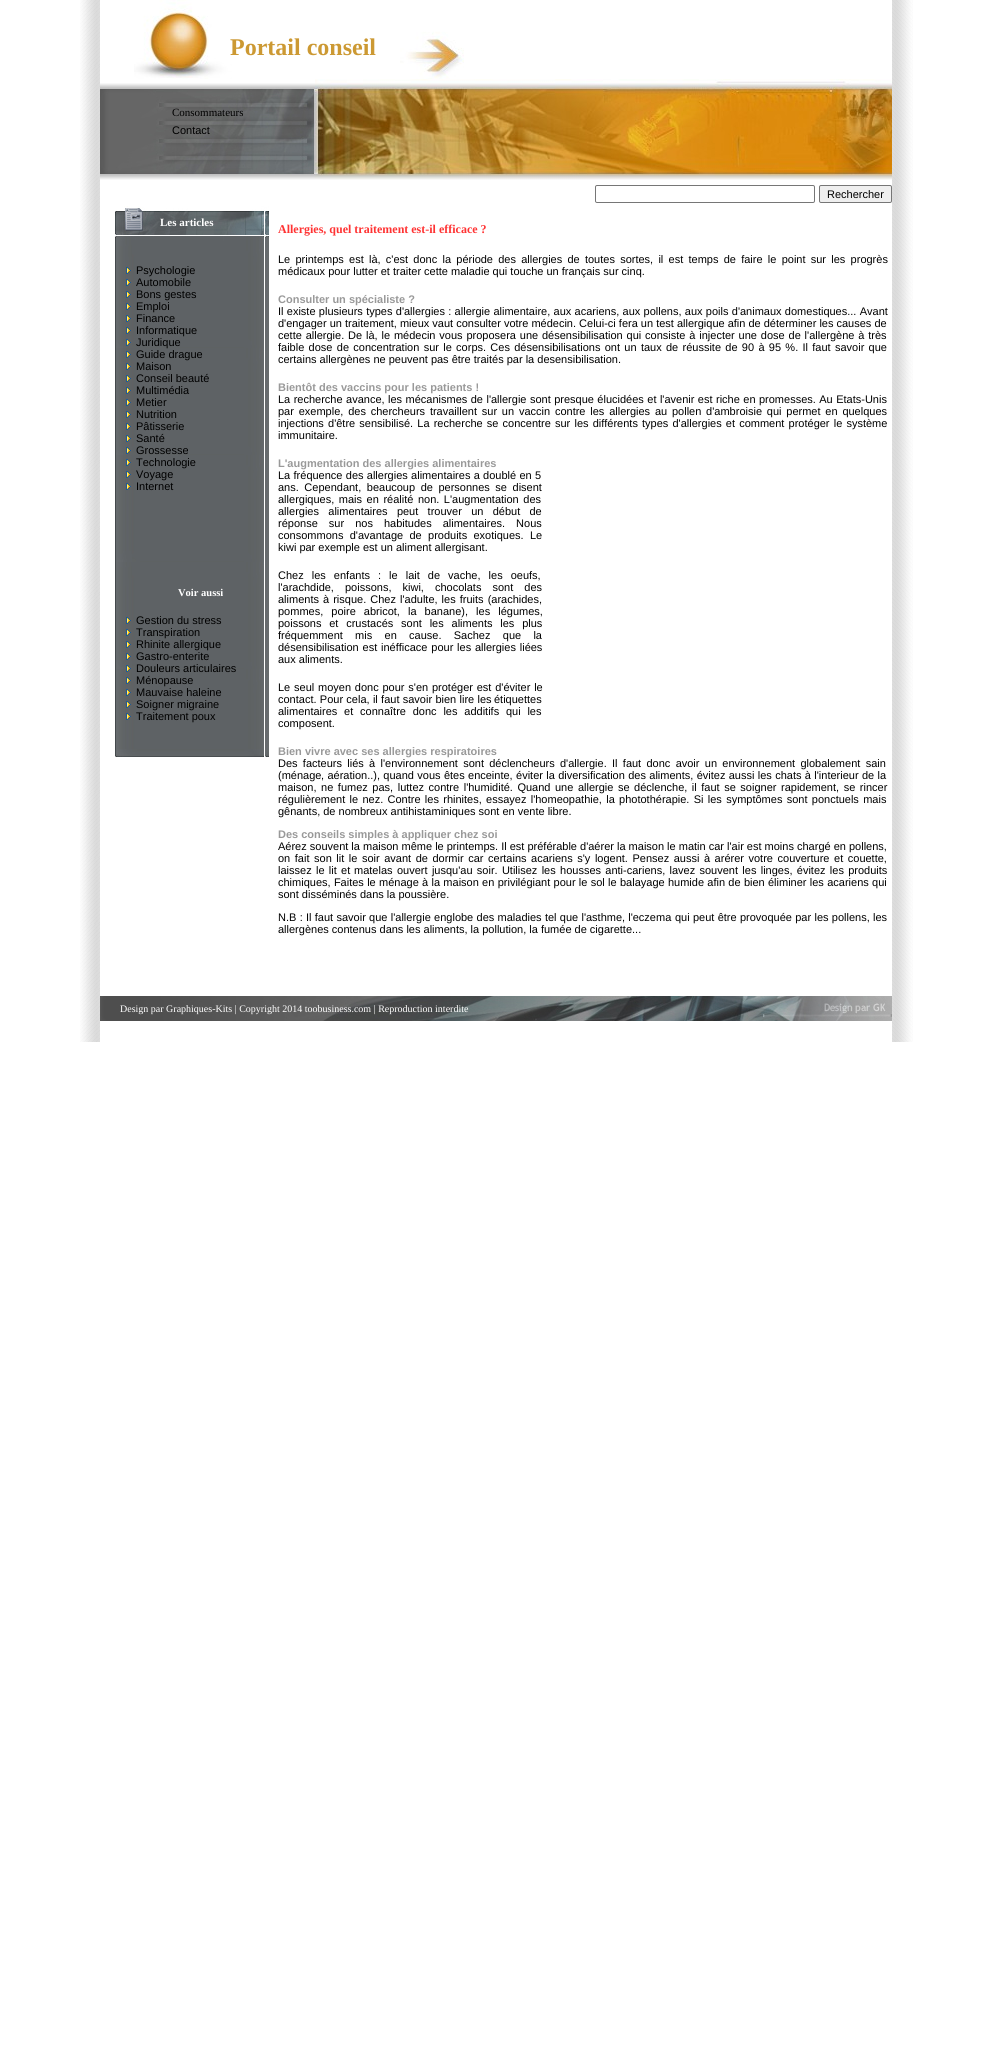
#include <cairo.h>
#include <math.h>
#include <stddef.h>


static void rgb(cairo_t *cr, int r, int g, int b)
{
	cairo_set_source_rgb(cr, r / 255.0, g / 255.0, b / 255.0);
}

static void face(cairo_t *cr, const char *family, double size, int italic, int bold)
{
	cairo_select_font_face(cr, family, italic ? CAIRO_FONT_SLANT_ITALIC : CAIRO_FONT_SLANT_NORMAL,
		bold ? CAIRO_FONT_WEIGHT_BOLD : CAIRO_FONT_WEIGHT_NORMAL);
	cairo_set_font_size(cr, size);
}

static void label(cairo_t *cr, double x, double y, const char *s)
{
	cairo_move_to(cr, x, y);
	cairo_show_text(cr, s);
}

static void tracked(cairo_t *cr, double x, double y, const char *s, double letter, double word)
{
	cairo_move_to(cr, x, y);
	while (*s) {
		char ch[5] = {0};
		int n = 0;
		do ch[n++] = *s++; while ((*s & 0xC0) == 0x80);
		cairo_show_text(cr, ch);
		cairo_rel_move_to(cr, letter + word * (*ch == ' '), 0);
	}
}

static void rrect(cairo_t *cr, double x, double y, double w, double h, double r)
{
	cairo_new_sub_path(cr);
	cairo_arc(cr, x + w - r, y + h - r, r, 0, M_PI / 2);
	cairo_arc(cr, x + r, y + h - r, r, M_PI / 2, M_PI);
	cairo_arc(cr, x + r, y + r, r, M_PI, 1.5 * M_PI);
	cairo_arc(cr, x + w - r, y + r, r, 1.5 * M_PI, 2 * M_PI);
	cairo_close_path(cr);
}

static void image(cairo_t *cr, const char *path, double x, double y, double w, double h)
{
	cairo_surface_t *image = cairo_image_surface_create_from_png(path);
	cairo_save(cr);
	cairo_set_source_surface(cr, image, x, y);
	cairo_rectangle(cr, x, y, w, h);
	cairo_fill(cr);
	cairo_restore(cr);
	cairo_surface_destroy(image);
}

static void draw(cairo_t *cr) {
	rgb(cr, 255, 255, 255);
	cairo_paint(cr);
	image(cr, "image0.png", 80, 0, 20, 1042);
	image(cr, "image1.png", 134, 0, 330, 79);
	face(cr, "Liberation Serif", 24, 0, 1);
	rgb(cr, 204, 153, 51);
	label(cr, 230, 55, "Portail conseil");
	image(cr, "image2.png", 100, 83, 215, 97);
	face(cr, "Liberation Serif", 11, 0, 0);
	rgb(cr, 0, 0, 0);
	label(cr, 172, 116, "Consommateurs");
	face(cr, "Liberation Sans", 11, 0, 0);
	label(cr, 172, 134, "Contact");
	image(cr, "image3.png", 315, 79, 577, 101);
	rrect(cr, 595.5, 185.5, 219, 17, 1.5);
	rgb(cr, 118, 118, 118);
	cairo_set_line_width(cr, 1);
	cairo_stroke(cr);
	rgb(cr, 239, 239, 239);
	rrect(cr, 819.5, 185.5, 72, 17, 1.5);
	cairo_fill_preserve(cr);
	rgb(cr, 118, 118, 118);
	cairo_stroke(cr);
	rgb(cr, 0, 0, 0);
	label(cr, 827, 198, "Rechercher");
	image(cr, "image4.png", 115, 206, 154, 35);
	face(cr, "Liberation Serif", 11, 0, 1);
	rgb(cr, 255, 255, 255);
	label(cr, 160, 226, "Les articles");
	image(cr, "image5.png", 115, 241, 154, 508);
	image(cr, "image6.png", 126, 267, 5, 7);
	face(cr, "Liberation Sans", 11, 0, 0);
	rgb(cr, 0, 0, 0);
	label(cr, 136, 274, "Psychologie");
	image(cr, "image6.png", 126, 279, 5, 7);
	label(cr, 136, 286, "Automobile");
	image(cr, "image6.png", 126, 291, 5, 7);
	label(cr, 136, 298, "Bons gestes");
	image(cr, "image6.png", 126, 303, 5, 7);
	label(cr, 136, 310, "Emploi");
	image(cr, "image6.png", 126, 315, 5, 7);
	label(cr, 136, 322, "Finance");
	image(cr, "image6.png", 126, 327, 5, 7);
	label(cr, 136, 334, "Informatique");
	image(cr, "image7.png", 126, 339, 5, 7);
	label(cr, 136, 346, "Juridique");
	image(cr, "image8.png", 126, 351, 5, 7);
	label(cr, 136, 358, "Guide drague");
	image(cr, "image9.png", 126, 363, 5, 7);
	label(cr, 136, 370, "Maison");
	image(cr, "image6.png", 126, 375, 5, 7);
	label(cr, 136, 382, "Conseil beauté");
	image(cr, "image6.png", 126, 387, 5, 7);
	label(cr, 136, 394, "Multimédia");
	image(cr, "image6.png", 126, 399, 5, 7);
	label(cr, 136, 406, "Metier");
	image(cr, "image6.png", 126, 411, 5, 7);
	label(cr, 136, 418, "Nutrition");
	image(cr, "image6.png", 126, 423, 5, 7);
	label(cr, 136, 430, "Pâtisserie");
	image(cr, "image6.png", 126, 435, 5, 7);
	label(cr, 136, 442, "Santé");
	image(cr, "image7.png", 126, 447, 5, 7);
	label(cr, 136, 454, "Grossesse");
	image(cr, "image8.png", 126, 459, 5, 7);
	label(cr, 136, 466, "Technologie");
	image(cr, "image6.png", 126, 471, 5, 7);
	label(cr, 136, 478, "Voyage");
	image(cr, "image6.png", 126, 483, 5, 7);
	label(cr, 136, 490, "Internet");
	face(cr, "Liberation Serif", 10.5, 0, 1);
	rgb(cr, 255, 255, 255);
	label(cr, 178, 596, "Voir aussi");
	image(cr, "image6.png", 126, 617, 5, 7);
	face(cr, "Liberation Sans", 11, 0, 0);
	rgb(cr, 0, 0, 0);
	label(cr, 136, 624, "Gestion du stress");
	image(cr, "image6.png", 126, 629, 5, 7);
	label(cr, 136, 636, "Transpiration");
	image(cr, "image6.png", 126, 641, 5, 7);
	label(cr, 136, 648, "Rhinite allergique");
	image(cr, "image10.png", 126, 653, 5, 7);
	label(cr, 136, 660, "Gastro-enterite");
	image(cr, "image11.png", 126, 665, 5, 7);
	label(cr, 136, 672, "Douleurs articulaires");
	image(cr, "image12.png", 126, 677, 5, 7);
	label(cr, 136, 684, "Ménopause");
	image(cr, "image6.png", 126, 689, 5, 7);
	label(cr, 136, 696, "Mauvaise haleine");
	image(cr, "image6.png", 126, 701, 5, 7);
	label(cr, 136, 708, "Soigner migraine");
	image(cr, "image6.png", 126, 713, 5, 7);
	label(cr, 136, 720, "Traitement poux");
	image(cr, "image13.png", 115, 749, 154, 8);
	face(cr, "Liberation Serif", 12, 0, 1);
	rgb(cr, 255, 51, 51);
	label(cr, 278, 233, "Allergies, quel traitement est-il efficace ?");
	face(cr, "Liberation Sans", 11, 0, 0);
	rgb(cr, 0, 0, 0);
	tracked(cr, 278, 263, "Le printemps est là, c'est donc la période des allergies de toutes sortes, il est temps de faire le point sur les progrès", 0, 2.2);
	label(cr, 278, 275, "médicaux pour lutter et traiter cette maladie qui touche un français sur cinq.");
	face(cr, "Liberation Sans", 11, 0, 1);
	rgb(cr, 153, 153, 153);
	label(cr, 278, 303, "Consulter un spécialiste ?");
	face(cr, "Liberation Sans", 11, 0, 0);
	rgb(cr, 0, 0, 0);
	tracked(cr, 278, 315, "Il existe plusieurs types d'allergies : allergie alimentaire, aux acariens, aux pollens, aux poils d'animaux domestiques... Avant", 0, 0.25);
	label(cr, 278, 327, "d'engager un traitement, mieux vaut consulter votre médecin. Celui-ci fera un test allergique afin de déterminer les causes de");
	tracked(cr, 278, 339, "cette allergie. De là, le médecin vous proposera une désensibilisation qui consiste à injecter une dose de l'allergène à très", 0, 0.8);
	tracked(cr, 278, 351, "faible dose de concentration sur le corps. Ces désensibilisations ont un taux de réussite de 90 à 95 %. Il faut savoir que", 0, 1.25);
	label(cr, 278, 363, "certains allergènes ne peuvent pas être traités par la desensibilisation.");
	face(cr, "Liberation Sans", 11, 0, 1);
	rgb(cr, 153, 153, 153);
	label(cr, 278, 391, "Bientôt des vaccins pour les patients !");
	face(cr, "Liberation Sans", 11, 0, 0);
	rgb(cr, 0, 0, 0);
	tracked(cr, 278, 403, "La recherche avance, les mécanismes de l'allergie sont presque élucidées et l'avenir est riche en promesses. Au Etats-Unis", 0, 0.4);
	tracked(cr, 278, 415, "par exemple, des chercheurs travaillent sur un vaccin contre les allergies au pollen d'ambroisie qui permet en quelques", 0, 1.75);
	tracked(cr, 278, 427, "injections d'être sensibilisé. La recherche se concentre sur les différents types d'allergies et comment protéger le système", 0, 1.1);
	label(cr, 278, 439, "immunitaire.");
	face(cr, "Liberation Sans", 11, 0, 1);
	rgb(cr, 153, 153, 153);
	label(cr, 278, 467, "L'augmentation des allergies alimentaires");
	face(cr, "Liberation Sans", 11, 0, 0);
	rgb(cr, 0, 0, 0);
	tracked(cr, 278, 479, "La fréquence des allergies alimentaires a doublé en 5", 0, 0.25);
	tracked(cr, 278, 491, "ans. Cependant, beaucoup de personnes se disent", 0, 2.5);
	tracked(cr, 278, 503, "allergiques, mais en réalité non. L'augmentation des", 0, 1.5);
	tracked(cr, 278, 515, "allergies alimentaires peut trouver un début de", 0, 6.25);
	tracked(cr, 278, 527, "réponse sur nos habitudes alimentaires. Nous", 0, 8);
	tracked(cr, 278, 539, "consommons d'avantage de produits exotiques. Le", 0, 3.25);
	label(cr, 278, 551, "kiwi par exemple est un aliment allergisant.");
	tracked(cr, 278, 579, "Chez les enfants : le lait de vache, les oeufs,", 0, 5);
	tracked(cr, 278, 591, "l'arachdide, poissons, kiwi, chocolats sont des", 0, 8);
	tracked(cr, 278, 603, "aliments à risque. Chez l'adulte, les fruits (arachides,", 0, 1);
	tracked(cr, 278, 615, "pommes, poire abricot,", 0, 5);
	tracked(cr, 408, 615, "la banane), les légumes,", 0, 5);
	tracked(cr, 278, 627, "poissons et crustacés sont les aliments les plus", 0, 4.75);
	tracked(cr, 278, 639, "fréquemment mis en cause. Sachez que la", 0, 9.25);
	tracked(cr, 278, 651, "désensibilisation est inéfficace pour les allergies liées", 0, 0.75);
	label(cr, 278, 663, "aux aliments.");
	tracked(cr, 278, 691, "Le seul moyen donc pour s'en protéger est d'éviter le", 0, 0.75);
	tracked(cr, 278, 703, "contact. Pour cela, il faut savoir bien lire les", 0, 0.25);
	label(cr, 494, 703, "étiquettes");
	tracked(cr, 278, 715, "alimentaires et connaître donc les additifs qui les", 0, 3.75);
	label(cr, 278, 727, "composent.");
	face(cr, "Liberation Sans", 11, 0, 1);
	rgb(cr, 153, 153, 153);
	label(cr, 278, 755, "Bien vivre avec ses allergies respiratoires");
	face(cr, "Liberation Sans", 11, 0, 0);
	rgb(cr, 0, 0, 0);
	tracked(cr, 278, 767, "Des facteurs liés à l'environnement sont déclencheurs d'allergie. Il faut donc avoir un environnement globalement sain", 0, 2.25);
	label(cr, 278, 779, "(ménage");
	tracked(cr, 321, 779, ", aération..), quand vous êtes enceinte, éviter la diversification des aliments, évitez aussi les chats à l'interieur de la", 0, 0.3);
	tracked(cr, 278, 791, "maison, ne fumez pas, luttez contre l'humidité. Quand une allergie se déclenche, il faut se soigner rapidement, se rincer", 0, 1.5);
	tracked(cr, 278, 803, "régulièrement le nez. Contre les rhinites, essayez l'homeopathie, la photothérapie. Si les symptômes sont ponctuels mais", 0, 1.25);
	label(cr, 278, 815, "gênants, de nombreux antihistaminiques sont en vente libre.");
	face(cr, "Liberation Sans", 11, 0, 1);
	rgb(cr, 153, 153, 153);
	label(cr, 278, 838, "Des conseils simples à appliquer chez soi");
	face(cr, "Liberation Sans", 11, 0, 0);
	rgb(cr, 0, 0, 0);
	label(cr, 278, 850, "Aérez souvent la maison même le printemps. Il est préférable d'aérer la maison le matin car l'air est moins chargé en pollens,");
	tracked(cr, 278, 862, "on fait son lit le soir avant de dormir car certains acariens s'y logent. Pensez aussi à arérer votre couverture et couette,", 0, 1.5);
	tracked(cr, 278, 874, "laissez le lit et", 0, 1.25);
	label(cr, 354, 874, "matelas");
	tracked(cr, 397, 874, "ouvert jusqu'au soir. Utilisez les housses anti-cariens, lavez souvent les linges, évitez les produits", 0, 1.25);
	tracked(cr, 278, 886, "chimiques, Faites le ménage à la maison en privilégiant pour le sol le balayage humide afin de bien éliminer les acariens qui", 0, 0.25);
	label(cr, 278, 898, "sont disséminés dans la poussière.");
	tracked(cr, 278, 921, "N.B : Il faut savoir que l'allergie englobe des maladies tel que l'", 0, 0.25);
	label(cr, 586, 921, "asthme, l'eczema");
	tracked(cr, 675, 921, "qui peut être provoquée par les pollens, les", 0, 0.25);
	label(cr, 278, 933, "allergènes contenus dans les aliments, la pollution, la fumée de cigarette...");
	image(cr, "image14.png", 100, 996, 792, 25);
	face(cr, "Liberation Serif", 10, 0, 0);
	rgb(cr, 255, 255, 255);
	label(cr, 120, 1012, "Design par Graphiques-Kits | Copyright 2014 toobusiness.com | Reproduction interdite");
	image(cr, "image15.png", 892, 0, 21, 1042);
}

int main(void) {
	cairo_surface_t *surface = cairo_image_surface_create(CAIRO_FORMAT_RGB24, 992, 2060);
	cairo_t *cr = cairo_create(surface);
	cairo_font_options_t *options = cairo_font_options_create();
	cairo_font_options_set_hint_metrics(options, CAIRO_HINT_METRICS_OFF);
	cairo_font_options_set_hint_style(options, CAIRO_HINT_STYLE_NONE);
	cairo_set_font_options(cr, options);
	cairo_set_miter_limit(cr, 4);
	draw(cr);
	cairo_surface_write_to_png(surface, "render.png");
	cairo_font_options_destroy(options);
	cairo_destroy(cr);
	cairo_surface_destroy(surface);
	return 0;
}
